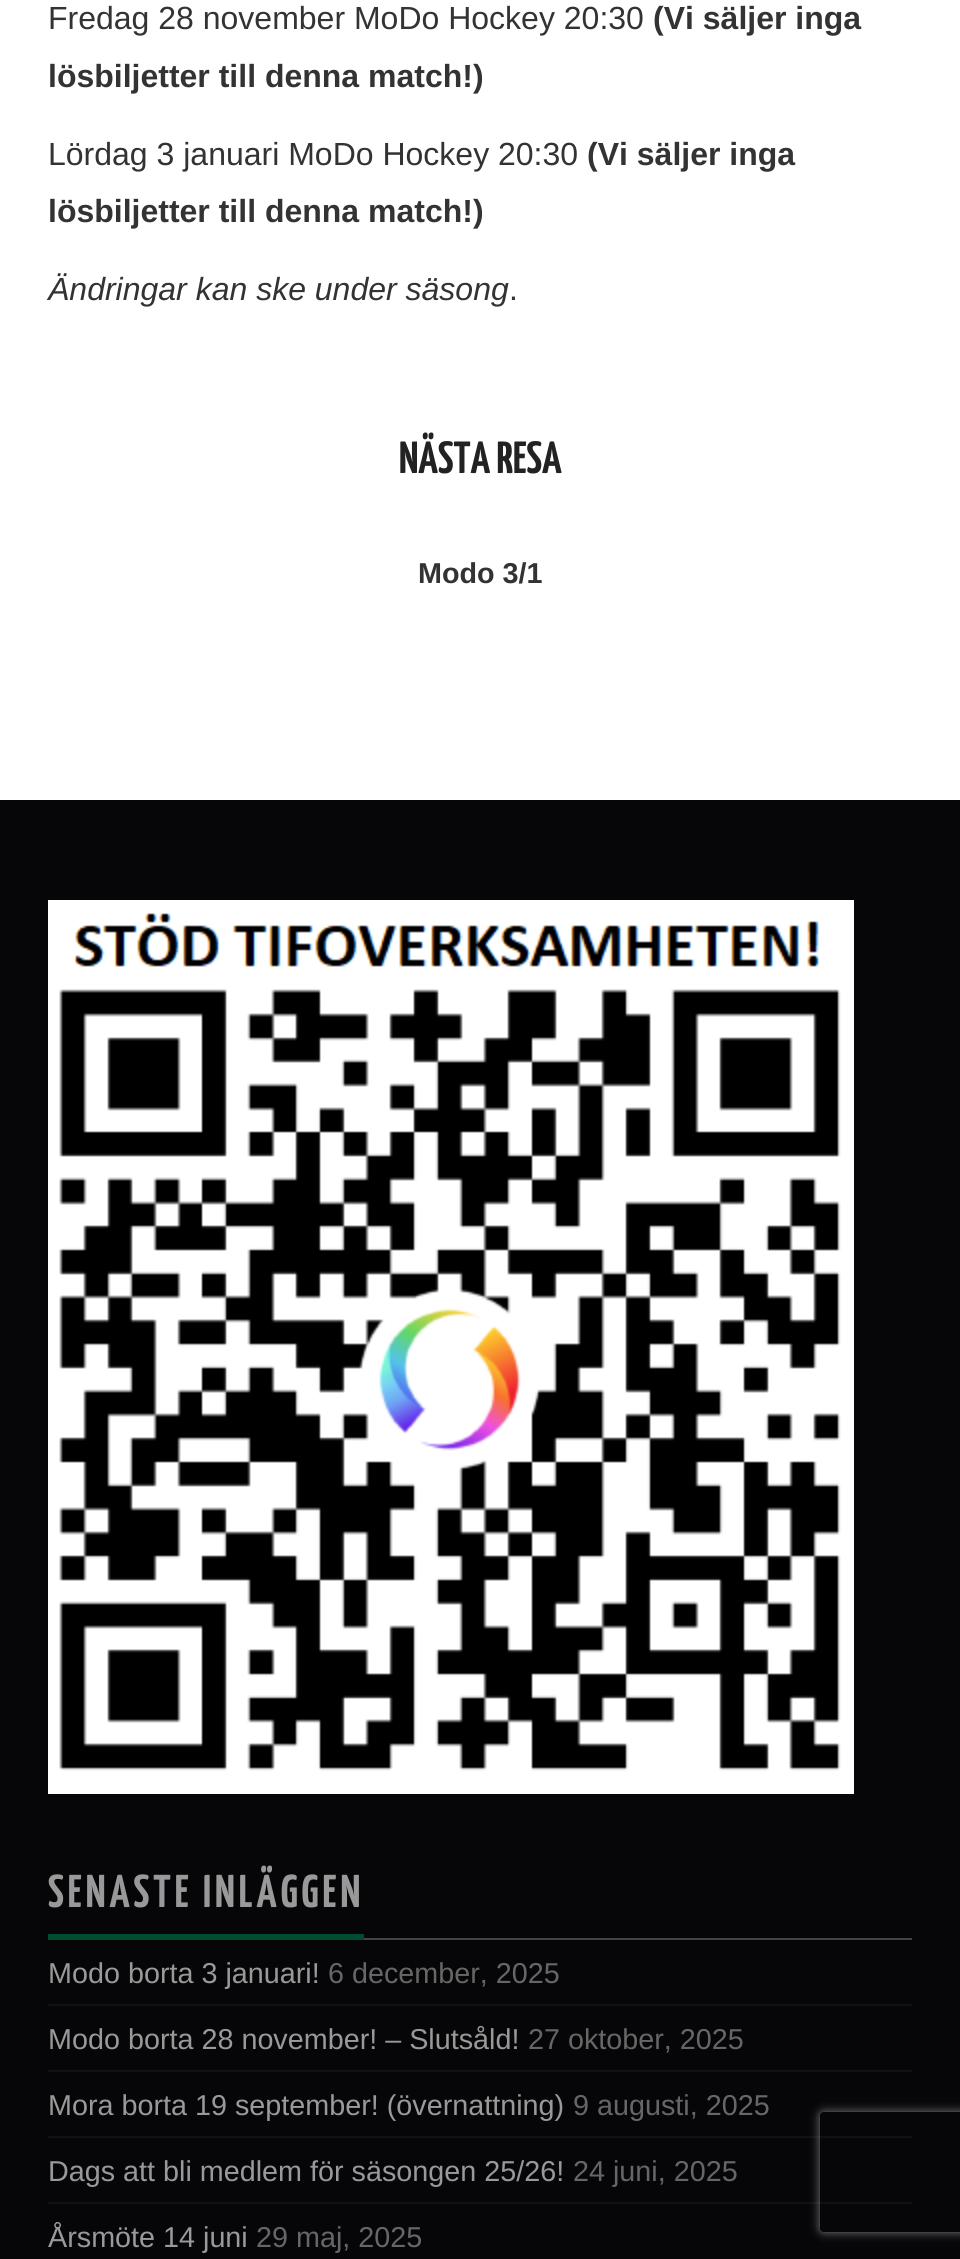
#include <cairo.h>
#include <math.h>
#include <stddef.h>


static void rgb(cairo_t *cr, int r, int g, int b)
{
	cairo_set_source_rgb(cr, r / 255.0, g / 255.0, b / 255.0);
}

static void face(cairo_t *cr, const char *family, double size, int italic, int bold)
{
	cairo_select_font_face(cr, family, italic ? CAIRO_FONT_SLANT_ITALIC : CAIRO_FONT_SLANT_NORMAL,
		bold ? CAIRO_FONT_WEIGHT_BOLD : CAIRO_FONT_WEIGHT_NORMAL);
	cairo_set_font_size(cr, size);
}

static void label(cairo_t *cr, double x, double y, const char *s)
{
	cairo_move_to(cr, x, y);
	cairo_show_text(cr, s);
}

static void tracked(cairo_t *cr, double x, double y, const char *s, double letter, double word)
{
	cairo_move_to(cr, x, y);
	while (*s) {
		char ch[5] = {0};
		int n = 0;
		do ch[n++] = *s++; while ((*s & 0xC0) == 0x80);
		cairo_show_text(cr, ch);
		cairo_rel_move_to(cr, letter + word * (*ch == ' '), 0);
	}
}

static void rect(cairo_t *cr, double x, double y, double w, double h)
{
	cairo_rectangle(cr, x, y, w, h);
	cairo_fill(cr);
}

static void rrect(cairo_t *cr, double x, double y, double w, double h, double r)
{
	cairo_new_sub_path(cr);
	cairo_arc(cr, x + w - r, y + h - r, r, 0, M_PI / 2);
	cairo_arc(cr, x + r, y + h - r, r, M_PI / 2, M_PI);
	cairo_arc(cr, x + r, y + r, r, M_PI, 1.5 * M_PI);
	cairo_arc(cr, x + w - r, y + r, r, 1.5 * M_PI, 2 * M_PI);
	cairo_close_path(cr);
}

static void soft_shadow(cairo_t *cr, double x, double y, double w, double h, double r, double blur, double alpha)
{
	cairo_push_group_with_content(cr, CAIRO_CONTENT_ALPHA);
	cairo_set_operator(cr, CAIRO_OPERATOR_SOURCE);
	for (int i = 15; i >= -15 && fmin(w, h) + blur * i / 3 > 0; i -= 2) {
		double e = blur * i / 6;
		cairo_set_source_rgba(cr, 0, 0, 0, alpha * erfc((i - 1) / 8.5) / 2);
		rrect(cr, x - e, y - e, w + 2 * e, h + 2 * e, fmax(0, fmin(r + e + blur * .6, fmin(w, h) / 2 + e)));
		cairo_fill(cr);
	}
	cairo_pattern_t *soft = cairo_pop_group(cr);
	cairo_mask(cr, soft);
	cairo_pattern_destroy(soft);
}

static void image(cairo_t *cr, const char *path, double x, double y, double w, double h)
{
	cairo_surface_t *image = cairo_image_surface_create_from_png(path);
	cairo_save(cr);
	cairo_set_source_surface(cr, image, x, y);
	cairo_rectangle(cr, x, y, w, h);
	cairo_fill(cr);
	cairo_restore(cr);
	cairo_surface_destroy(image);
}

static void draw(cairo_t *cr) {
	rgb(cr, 255, 255, 255);
	cairo_paint(cr);
	face(cr, "Liberation Sans", 32, 0, 0);
	rgb(cr, 51, 51, 51);
	label(cr, 48, 29, "Fredag 28 november MoDo Hockey 20:30");
	face(cr, "Liberation Sans", 32, 0, 1);
	label(cr, 653, 29, "(Vi säljer inga");
	label(cr, 48, 87, "lösbiljetter till denna match!)");
	face(cr, "Liberation Sans", 32, 0, 0);
	label(cr, 48, 165, "Lördag 3 januari MoDo Hockey 20:30");
	face(cr, "Liberation Sans", 32, 0, 1);
	label(cr, 587, 165, "(Vi säljer inga");
	label(cr, 48, 222, "lösbiljetter till denna match!)");
	face(cr, "Liberation Sans", 32, 1, 0);
	label(cr, 48, 300, "Ändringar kan ske under säsong");
	face(cr, "Liberation Sans", 32, 0, 0);
	label(cr, 509, 300, ".");
	face(cr, "Yanone Kaffeesatz", 45, 0, 1);
	rgb(cr, 34, 34, 34);
	label(cr, 399, 473, "NÄSTA RESA");
	face(cr, "Liberation Sans", 28.75, 0, 1);
	rgb(cr, 51, 51, 51);
	label(cr, 418, 583, "Modo 3/1");
	rgb(cr, 6, 6, 8);
	rect(cr, 0, 800, 960, 1459);
	image(cr, "image0.png", 48, 900, 806, 894);
	rgb(cr, 68, 68, 68);
	rect(cr, 364, 1938, 548, 2);
	rgb(cr, 0, 76, 48);
	rect(cr, 48, 1934, 316, 6);
	face(cr, "Yanone Kaffeesatz", 46, 0, 1);
	rgb(cr, 153, 153, 153);
	tracked(cr, 48, 1907, "SENASTE INLÄGGEN", 4, 0);
	rgb(cr, 17, 17, 17);
	rect(cr, 48, 2004, 864, 2);
	face(cr, "Liberation Sans", 28.75, 0, 0);
	rgb(cr, 153, 153, 153);
	label(cr, 48, 1983, "Modo borta 3 januari!");
	rgb(cr, 102, 102, 102);
	label(cr, 328, 1983, "6 december, 2025");
	rgb(cr, 17, 17, 17);
	rect(cr, 48, 2070, 864, 2);
	rgb(cr, 153, 153, 153);
	label(cr, 48, 2049, "Modo borta 28 november! – Slutsåld!");
	rgb(cr, 102, 102, 102);
	label(cr, 528, 2049, "27 oktober, 2025");
	rgb(cr, 17, 17, 17);
	rect(cr, 48, 2136, 864, 2);
	rgb(cr, 153, 153, 153);
	label(cr, 48, 2115, "Mora borta 19 september! (övernattning)");
	rgb(cr, 102, 102, 102);
	label(cr, 573, 2115, "9 augusti, 2025");
	rgb(cr, 17, 17, 17);
	rect(cr, 48, 2202, 864, 2);
	rgb(cr, 153, 153, 153);
	label(cr, 48, 2181, "Dags att bli medlem för säsongen 25/26!");
	rgb(cr, 102, 102, 102);
	label(cr, 573, 2181, "24 juni, 2025");
	rgb(cr, 153, 153, 153);
	label(cr, 48, 2247, "Årsmöte 14 juni");
	rgb(cr, 102, 102, 102);
	label(cr, 256, 2247, "29 maj, 2025");
	cairo_save(cr);
	cairo_set_fill_rule(cr, CAIRO_FILL_RULE_EVEN_ODD);
	cairo_new_path(cr);
	cairo_move_to(cr, 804, 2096);
	cairo_line_to(cr, 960, 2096);
	cairo_line_to(cr, 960, 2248);
	cairo_line_to(cr, 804, 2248);
	cairo_close_path(cr);
	cairo_move_to(cr, 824, 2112);
	cairo_line_to(cr, 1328, 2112);
	cairo_curve_to(cr, 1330, 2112, 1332, 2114, 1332, 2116);
	cairo_line_to(cr, 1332, 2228);
	cairo_curve_to(cr, 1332, 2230, 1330, 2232, 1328, 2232);
	cairo_line_to(cr, 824, 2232);
	cairo_curve_to(cr, 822, 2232, 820, 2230, 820, 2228);
	cairo_line_to(cr, 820, 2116);
	cairo_curve_to(cr, 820, 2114, 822, 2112, 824, 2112);
	cairo_close_path(cr);
	cairo_clip(cr);
	rgb(cr, 128, 128, 128);
	soft_shadow(cr, 820, 2112, 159, 120, 4, 5, 1);
	cairo_restore(cr);
}

int main(void) {
	cairo_surface_t *surface = cairo_image_surface_create(CAIRO_FORMAT_RGB24, 960, 2259);
	cairo_t *cr = cairo_create(surface);
	cairo_font_options_t *options = cairo_font_options_create();
	cairo_font_options_set_hint_metrics(options, CAIRO_HINT_METRICS_OFF);
	cairo_font_options_set_hint_style(options, CAIRO_HINT_STYLE_NONE);
	cairo_set_font_options(cr, options);
	cairo_set_miter_limit(cr, 4);
	draw(cr);
	cairo_surface_write_to_png(surface, "render.png");
	cairo_font_options_destroy(options);
	cairo_destroy(cr);
	cairo_surface_destroy(surface);
	return 0;
}
